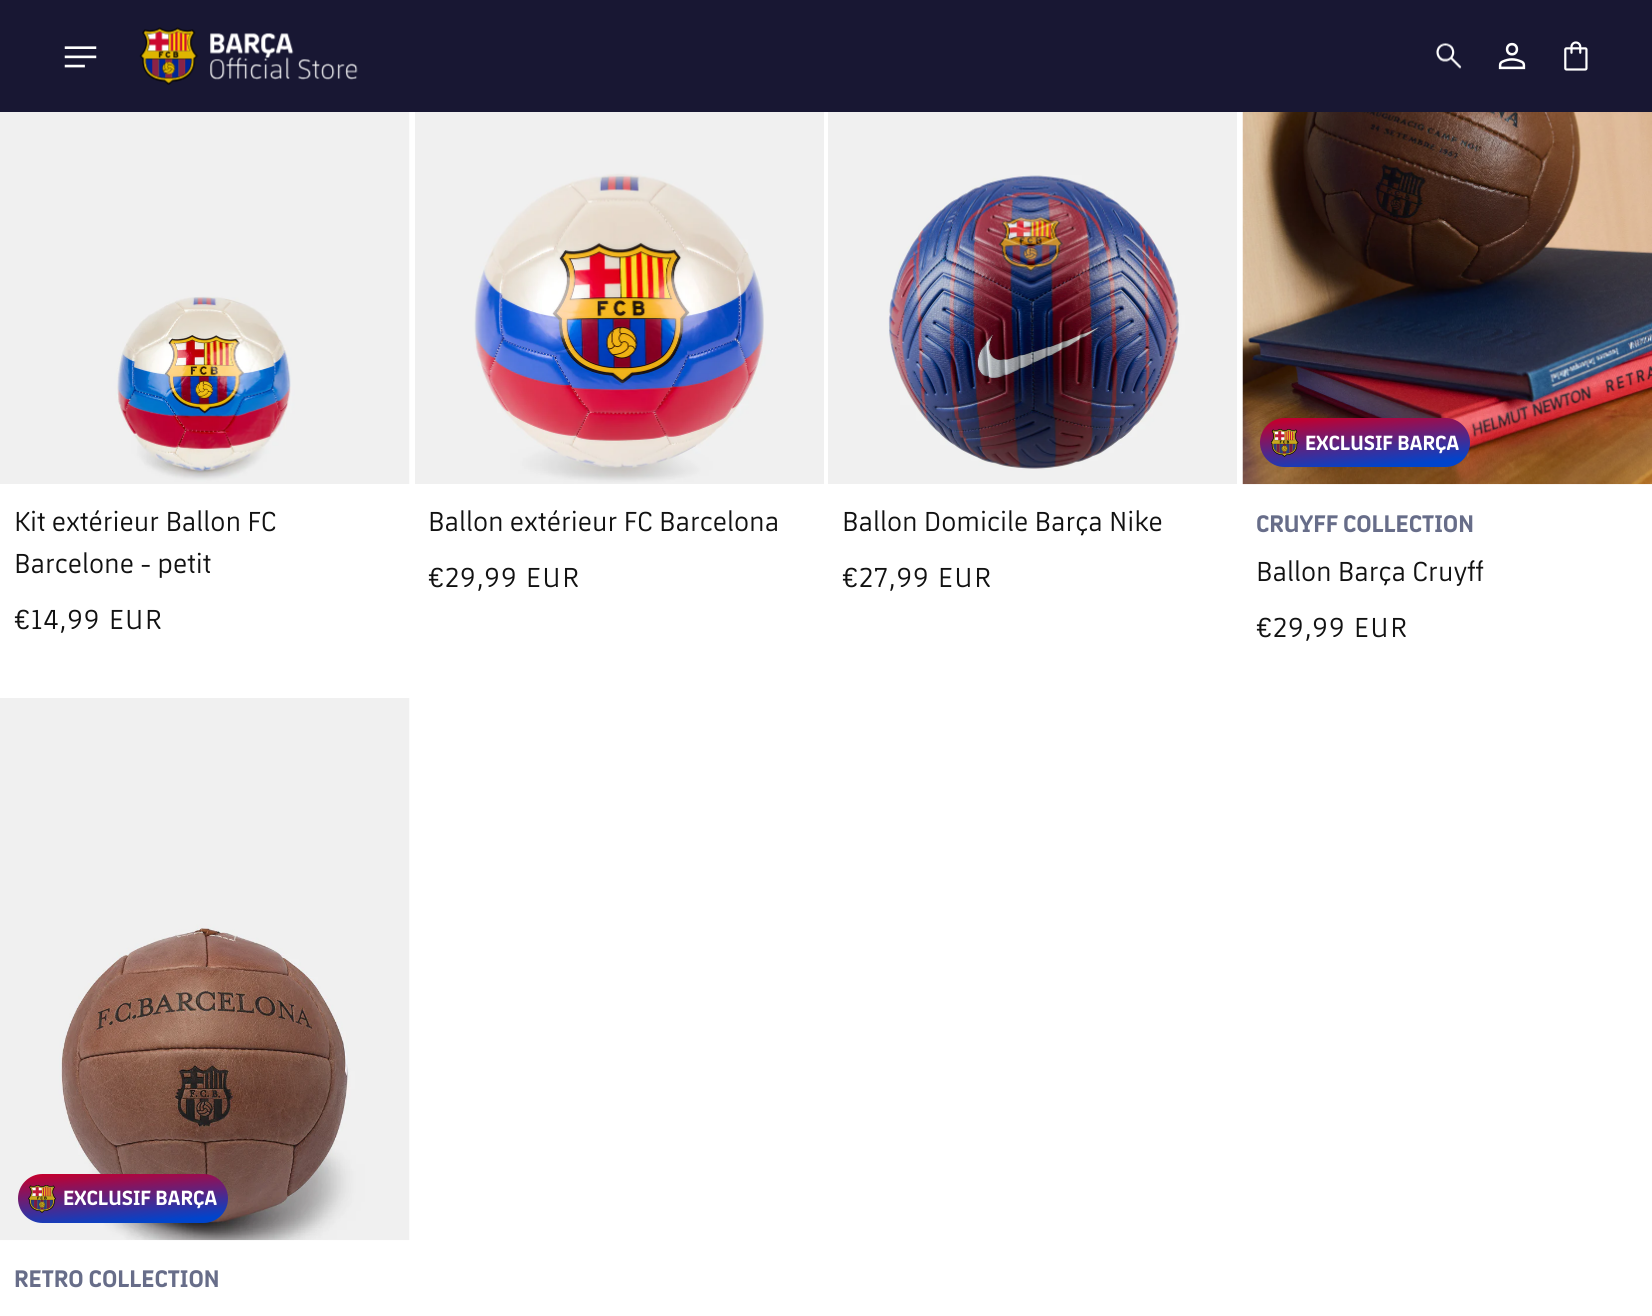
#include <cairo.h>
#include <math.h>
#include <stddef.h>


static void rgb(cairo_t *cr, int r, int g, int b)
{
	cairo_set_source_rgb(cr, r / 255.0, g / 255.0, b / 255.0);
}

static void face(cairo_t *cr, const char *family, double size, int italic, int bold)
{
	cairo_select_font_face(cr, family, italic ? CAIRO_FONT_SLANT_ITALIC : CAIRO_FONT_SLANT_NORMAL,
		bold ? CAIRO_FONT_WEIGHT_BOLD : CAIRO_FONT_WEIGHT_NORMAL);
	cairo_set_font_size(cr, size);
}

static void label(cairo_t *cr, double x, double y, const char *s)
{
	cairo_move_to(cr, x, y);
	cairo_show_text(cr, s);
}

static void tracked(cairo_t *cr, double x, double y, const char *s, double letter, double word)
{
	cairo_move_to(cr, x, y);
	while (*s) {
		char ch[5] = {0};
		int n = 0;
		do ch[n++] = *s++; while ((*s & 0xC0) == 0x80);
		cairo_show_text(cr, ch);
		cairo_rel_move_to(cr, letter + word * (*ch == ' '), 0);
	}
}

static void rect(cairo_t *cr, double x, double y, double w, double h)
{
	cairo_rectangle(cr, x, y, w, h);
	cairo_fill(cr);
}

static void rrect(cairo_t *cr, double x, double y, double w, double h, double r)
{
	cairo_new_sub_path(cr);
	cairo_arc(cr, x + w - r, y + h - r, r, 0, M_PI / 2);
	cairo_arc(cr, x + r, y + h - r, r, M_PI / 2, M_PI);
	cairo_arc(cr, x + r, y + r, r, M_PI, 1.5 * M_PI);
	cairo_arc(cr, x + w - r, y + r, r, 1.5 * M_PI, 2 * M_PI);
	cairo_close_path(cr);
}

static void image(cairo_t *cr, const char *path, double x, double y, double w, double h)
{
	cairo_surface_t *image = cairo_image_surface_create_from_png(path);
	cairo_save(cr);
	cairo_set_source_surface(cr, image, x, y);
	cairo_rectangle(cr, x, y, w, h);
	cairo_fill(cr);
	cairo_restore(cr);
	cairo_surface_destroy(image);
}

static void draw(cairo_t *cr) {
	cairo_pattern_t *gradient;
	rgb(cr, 255, 255, 255);
	cairo_paint(cr);
	rgb(cr, 24, 23, 51);
	rect(cr, 0, 0, 1652, 112);
	image(cr, "image0.png", 64, 46, 33, 22);
	image(cr, "image1.png", 139, 27, 219, 58);
	image(cr, "image2.png", 1436, 43, 26, 26);
	image(cr, "image3.png", 1498, 42, 28, 28);
	image(cr, "image4.png", 1564, 41, 24, 30);
	image(cr, "image5.png", 0, 112, 410, 372);
	face(cr, "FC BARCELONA", 28, 0, 0);
	rgb(cr, 18, 18, 18);
	label(cr, 14, 531, "Kit extérieur Ballon FC");
	label(cr, 14, 573, "Barcelone - petit");
	tracked(cr, 14, 629, "€14,99 EUR", 1.75, 0);
	image(cr, "image6.png", 415, 112, 409, 372);
	label(cr, 428, 531, "Ballon extérieur FC Barcelona");
	tracked(cr, 428, 587, "€29,99 EUR", 1.75, 0);
	image(cr, "image7.png", 828, 112, 409, 372);
	label(cr, 842, 531, "Ballon Domicile Barça Nike");
	tracked(cr, 842, 587, "€27,99 EUR", 1.75, 0);
	image(cr, "image8.png", 1242, 112, 410, 373);
	gradient = cairo_pattern_create_linear(1362, 409, 1368, 476);
	cairo_pattern_add_color_stop_rgba(gradient, 0.07, 0.753, 0, 0.188, 1);
	cairo_pattern_add_color_stop_rgba(gradient, 0.88, 0, 0.267, 0.8, 1);
	cairo_set_source(cr, gradient);
	cairo_pattern_destroy(gradient);
	rrect(cr, 1260, 418, 210, 49, 24.5);
	cairo_fill(cr);
	image(cr, "image9.png", 1271, 429, 28, 28);
	face(cr, "FC BARCELONA", 21, 0, 1);
	rgb(cr, 255, 255, 255);
	label(cr, 1305, 450, "EXCLUSIF BARÇA");
	face(cr, "FC BARCELONA", 24.5, 0, 1);
	rgb(cr, 103, 109, 137);
	label(cr, 1256, 532, "CRUYFF COLLECTION");
	face(cr, "FC BARCELONA", 28, 0, 0);
	rgb(cr, 18, 18, 18);
	label(cr, 1256, 581, "Ballon Barça Cruyff");
	tracked(cr, 1256, 637, "€29,99 EUR", 1.75, 0);
	image(cr, "image10.png", 0, 698, 410, 543);
	gradient = cairo_pattern_create_linear(120, 1165, 125, 1232);
	cairo_pattern_add_color_stop_rgba(gradient, 0.07, 0.753, 0, 0.188, 1);
	cairo_pattern_add_color_stop_rgba(gradient, 0.88, 0, 0.267, 0.8, 1);
	cairo_set_source(cr, gradient);
	cairo_pattern_destroy(gradient);
	rrect(cr, 18, 1174, 210, 49, 24.5);
	cairo_fill(cr);
	image(cr, "image11.png", 28, 1185, 28, 28);
	face(cr, "FC BARCELONA", 21, 0, 1);
	rgb(cr, 255, 255, 255);
	label(cr, 63, 1205, "EXCLUSIF BARÇA");
	face(cr, "FC BARCELONA", 24.5, 0, 1);
	rgb(cr, 103, 109, 137);
	label(cr, 14, 1287, "RETRO COLLECTION");
}

int main(void) {
	cairo_surface_t *surface = cairo_image_surface_create(CAIRO_FORMAT_RGB24, 1652, 1316);
	cairo_t *cr = cairo_create(surface);
	cairo_font_options_t *options = cairo_font_options_create();
	cairo_font_options_set_hint_metrics(options, CAIRO_HINT_METRICS_OFF);
	cairo_font_options_set_hint_style(options, CAIRO_HINT_STYLE_NONE);
	cairo_set_font_options(cr, options);
	cairo_set_miter_limit(cr, 4);
	draw(cr);
	cairo_surface_write_to_png(surface, "render.png");
	cairo_font_options_destroy(options);
	cairo_destroy(cr);
	cairo_surface_destroy(surface);
	return 0;
}
